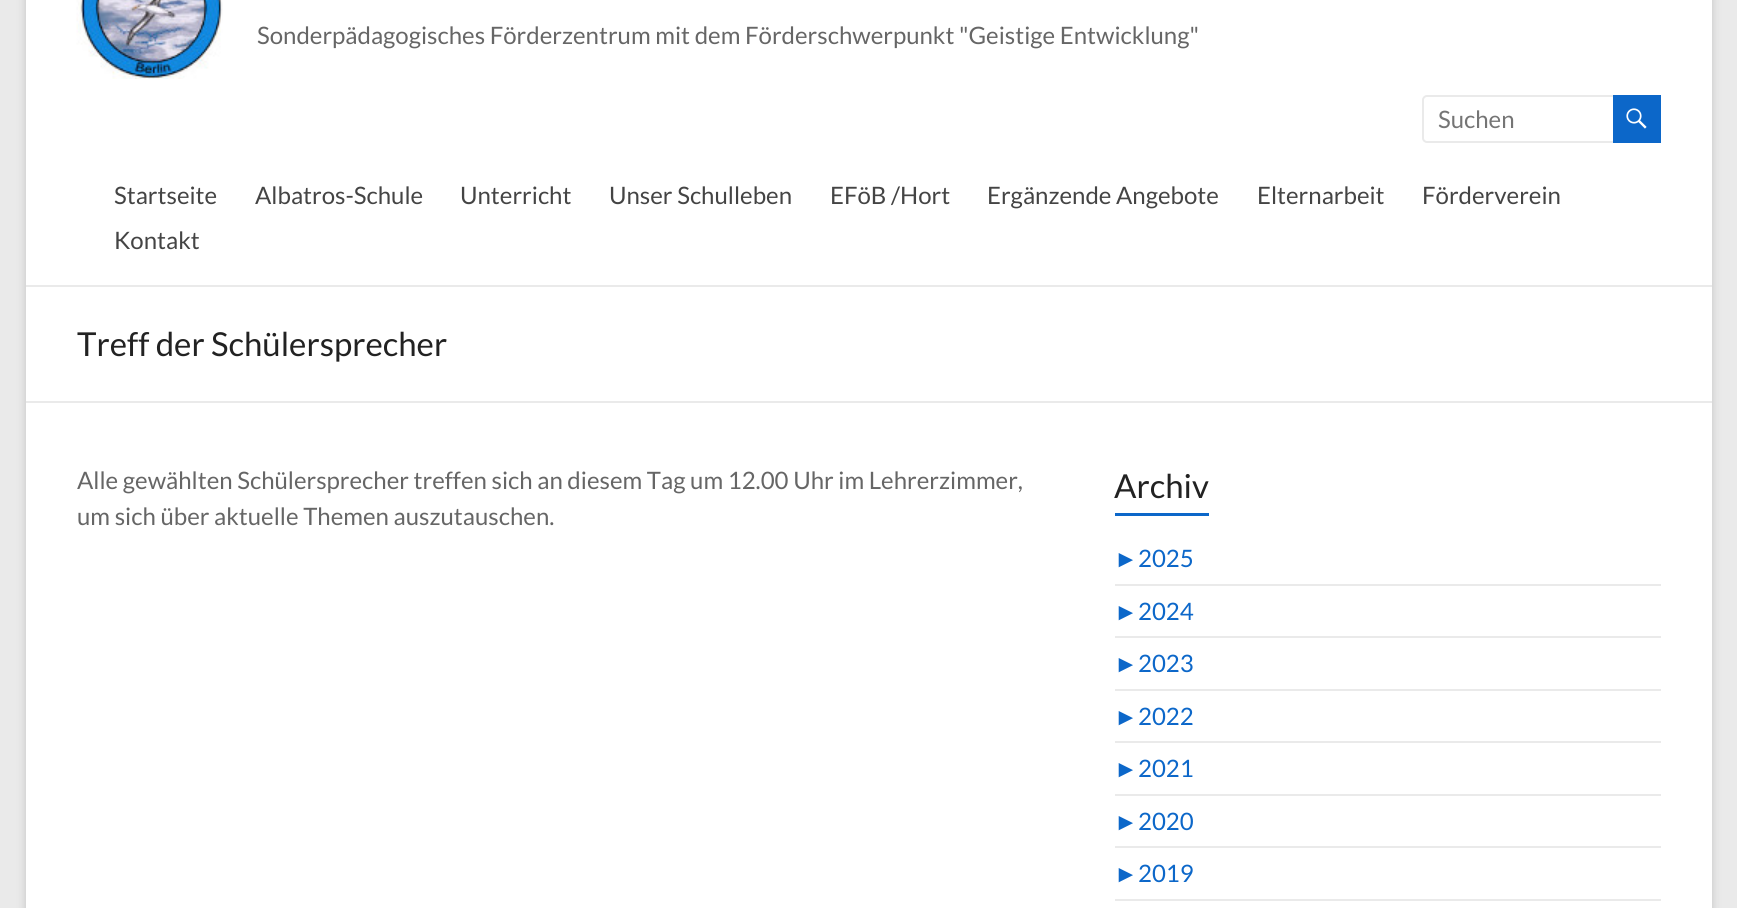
#include <cairo.h>
#include <math.h>
#include <stddef.h>


static void rgb(cairo_t *cr, int r, int g, int b)
{
	cairo_set_source_rgb(cr, r / 255.0, g / 255.0, b / 255.0);
}

static void face(cairo_t *cr, const char *family, double size, int italic, int bold)
{
	cairo_select_font_face(cr, family, italic ? CAIRO_FONT_SLANT_ITALIC : CAIRO_FONT_SLANT_NORMAL,
		bold ? CAIRO_FONT_WEIGHT_BOLD : CAIRO_FONT_WEIGHT_NORMAL);
	cairo_set_font_size(cr, size);
}

static void label(cairo_t *cr, double x, double y, const char *s)
{
	cairo_move_to(cr, x, y);
	cairo_show_text(cr, s);
}

static void rect(cairo_t *cr, double x, double y, double w, double h)
{
	cairo_rectangle(cr, x, y, w, h);
	cairo_fill(cr);
}

static void rrect(cairo_t *cr, double x, double y, double w, double h, double r)
{
	cairo_new_sub_path(cr);
	cairo_arc(cr, x + w - r, y + h - r, r, 0, M_PI / 2);
	cairo_arc(cr, x + r, y + h - r, r, M_PI / 2, M_PI);
	cairo_arc(cr, x + r, y + r, r, M_PI, 1.5 * M_PI);
	cairo_arc(cr, x + w - r, y + r, r, 1.5 * M_PI, 2 * M_PI);
	cairo_close_path(cr);
}

static void soft_shadow(cairo_t *cr, double x, double y, double w, double h, double r, double blur, double alpha)
{
	cairo_push_group_with_content(cr, CAIRO_CONTENT_ALPHA);
	cairo_set_operator(cr, CAIRO_OPERATOR_SOURCE);
	for (int i = 15; i >= -15 && fmin(w, h) + blur * i / 3 > 0; i -= 2) {
		double e = blur * i / 6;
		cairo_set_source_rgba(cr, 0, 0, 0, alpha * erfc((i - 1) / 8.5) / 2);
		rrect(cr, x - e, y - e, w + 2 * e, h + 2 * e, fmax(0, fmin(r + e + blur * .6, fmin(w, h) / 2 + e)));
		cairo_fill(cr);
	}
	cairo_pattern_t *soft = cairo_pop_group(cr);
	cairo_mask(cr, soft);
	cairo_pattern_destroy(soft);
}

static void image(cairo_t *cr, const char *path, double x, double y, double w, double h)
{
	cairo_surface_t *image = cairo_image_surface_create_from_png(path);
	cairo_save(cr);
	cairo_set_source_surface(cr, image, x, y);
	cairo_rectangle(cr, x, y, w, h);
	cairo_fill(cr);
	cairo_restore(cr);
	cairo_surface_destroy(image);
}

static void draw(cairo_t *cr) {
	rgb(cr, 234, 234, 234);
	cairo_paint(cr);
	rgb(cr, 100, 100, 100);
	soft_shadow(cr, 26, -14, 1686, 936, 0, 4.5, 0.3);
	rgb(cr, 255, 255, 255);
	rect(cr, 26, 0, 1686, 908);
	rgb(cr, 234, 234, 234);
	rect(cr, 26, 285, 1686, 2);
	image(cr, "image0.png", 76, 0, 147, 79);
	face(cr, "Lato", 24, 0, 0);
	rgb(cr, 102, 102, 102);
	label(cr, 257, 44, "Sonderpädagogisches Förderzentrum mit dem Förderschwerpunkt \"Geistige Entwicklung\"");
	rrect(cr, 1423, 96, 193, 46, 4);
	rgb(cr, 234, 234, 234);
	cairo_stroke(cr);
	rgb(cr, 117, 117, 117);
	label(cr, 1438, 128, "Suchen");
	rgb(cr, 12, 103, 201);
	rect(cr, 1613, 95, 48, 48);
	image(cr, "image1.png", 1626, 108, 21, 21);
	rgb(cr, 68, 68, 68);
	label(cr, 114, 204, "Startseite");
	label(cr, 255, 204, "Albatros-Schule");
	label(cr, 460, 204, "Unterricht");
	label(cr, 609, 204, "Unser Schulleben");
	label(cr, 830, 204, "EFöB /Hort");
	label(cr, 987, 204, "Ergänzende Angebote");
	label(cr, 1257, 204, "Elternarbeit");
	label(cr, 1422, 204, "Förderverein");
	label(cr, 114, 249, "Kontakt");
	rgb(cr, 234, 234, 234);
	rect(cr, 26, 401, 1686, 2);
	face(cr, "Lato", 33, 0, 0);
	rgb(cr, 34, 34, 34);
	label(cr, 77, 356, "Treff der Schülersprecher");
	face(cr, "Lato", 24, 0, 0);
	rgb(cr, 102, 102, 102);
	label(cr, 77, 489, "Alle gewählten Schülersprecher treffen sich an diesem Tag um 12.00 Uhr im Lehrerzimmer,");
	label(cr, 77, 525, "um sich über aktuelle Themen auszutauschen.");
	face(cr, "Lato", 33, 0, 0);
	rgb(cr, 34, 34, 34);
	label(cr, 1114, 498, "Archiv");
	rgb(cr, 12, 103, 201);
	rect(cr, 1115, 513, 94, 3);
	rgb(cr, 234, 234, 234);
	rect(cr, 1115, 584, 546, 2);
	face(cr, "Liberation Sans", 24, 0, 0);
	rgb(cr, 12, 103, 201);
	label(cr, 1114, 567, "►");
	face(cr, "Lato", 24, 0, 0);
	label(cr, 1138, 567, "2025");
	rgb(cr, 234, 234, 234);
	rect(cr, 1115, 636, 546, 2);
	face(cr, "Liberation Sans", 24, 0, 0);
	rgb(cr, 12, 103, 201);
	label(cr, 1114, 620, "►");
	face(cr, "Lato", 24, 0, 0);
	label(cr, 1138, 620, "2024");
	rgb(cr, 234, 234, 234);
	rect(cr, 1115, 689, 546, 2);
	face(cr, "Liberation Sans", 24, 0, 0);
	rgb(cr, 12, 103, 201);
	label(cr, 1114, 672, "►");
	face(cr, "Lato", 24, 0, 0);
	label(cr, 1138, 672, "2023");
	rgb(cr, 234, 234, 234);
	rect(cr, 1115, 741, 546, 2);
	face(cr, "Liberation Sans", 24, 0, 0);
	rgb(cr, 12, 103, 201);
	label(cr, 1114, 725, "►");
	face(cr, "Lato", 24, 0, 0);
	label(cr, 1138, 725, "2022");
	rgb(cr, 234, 234, 234);
	rect(cr, 1115, 794, 546, 2);
	face(cr, "Liberation Sans", 24, 0, 0);
	rgb(cr, 12, 103, 201);
	label(cr, 1114, 777, "►");
	face(cr, "Lato", 24, 0, 0);
	label(cr, 1138, 777, "2021");
	rgb(cr, 234, 234, 234);
	rect(cr, 1115, 846, 546, 2);
	face(cr, "Liberation Sans", 24, 0, 0);
	rgb(cr, 12, 103, 201);
	label(cr, 1114, 830, "►");
	face(cr, "Lato", 24, 0, 0);
	label(cr, 1138, 830, "2020");
	rgb(cr, 234, 234, 234);
	rect(cr, 1115, 899, 546, 2);
	face(cr, "Liberation Sans", 24, 0, 0);
	rgb(cr, 12, 103, 201);
	label(cr, 1114, 882, "►");
	face(cr, "Lato", 24, 0, 0);
	label(cr, 1138, 882, "2019");
}

int main(void) {
	cairo_surface_t *surface = cairo_image_surface_create(CAIRO_FORMAT_RGB24, 1737, 908);
	cairo_t *cr = cairo_create(surface);
	cairo_font_options_t *options = cairo_font_options_create();
	cairo_font_options_set_hint_metrics(options, CAIRO_HINT_METRICS_OFF);
	cairo_font_options_set_hint_style(options, CAIRO_HINT_STYLE_NONE);
	cairo_set_font_options(cr, options);
	cairo_set_miter_limit(cr, 4);
	draw(cr);
	cairo_surface_write_to_png(surface, "render.png");
	cairo_font_options_destroy(options);
	cairo_destroy(cr);
	cairo_surface_destroy(surface);
	return 0;
}
